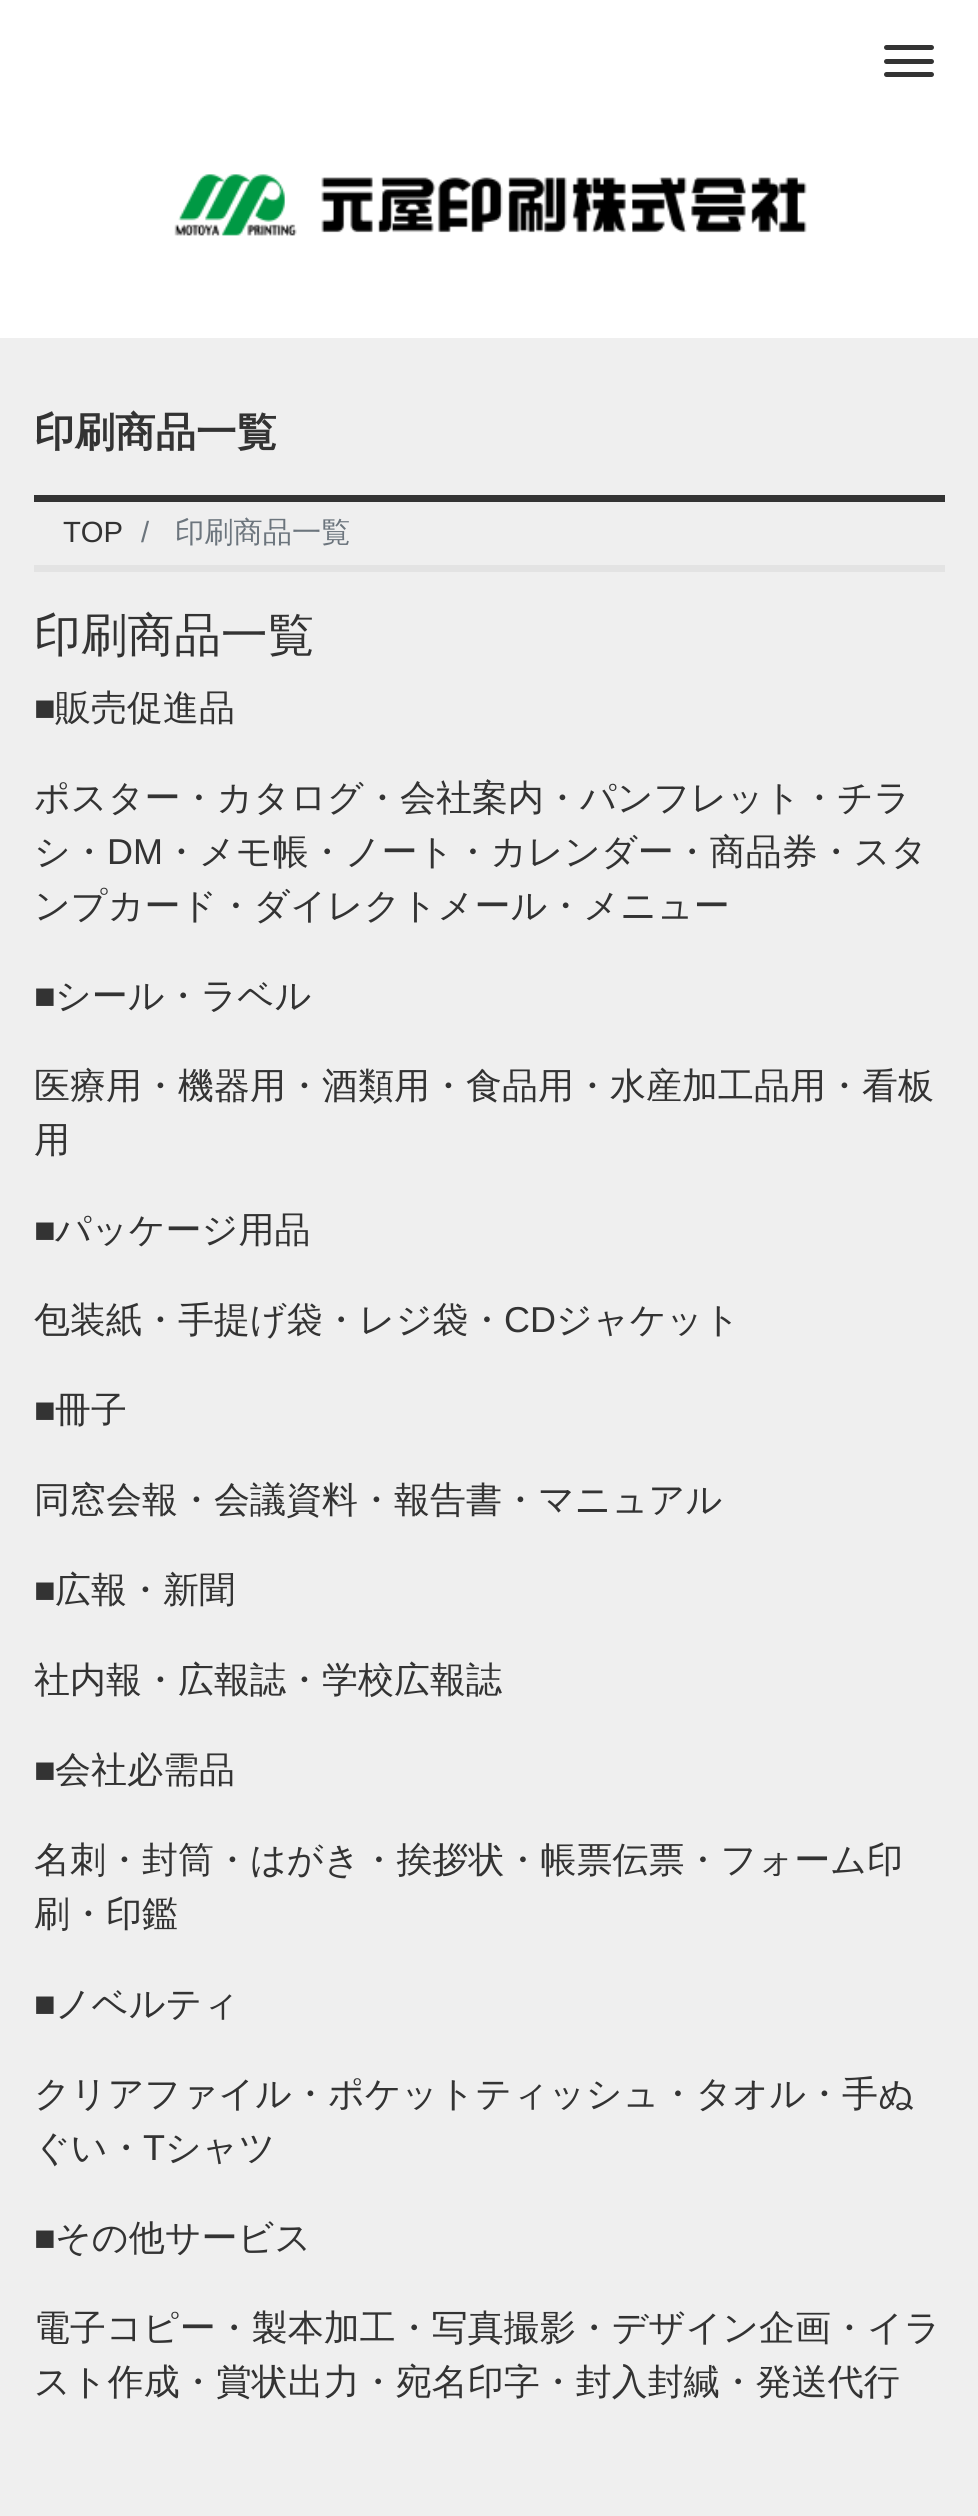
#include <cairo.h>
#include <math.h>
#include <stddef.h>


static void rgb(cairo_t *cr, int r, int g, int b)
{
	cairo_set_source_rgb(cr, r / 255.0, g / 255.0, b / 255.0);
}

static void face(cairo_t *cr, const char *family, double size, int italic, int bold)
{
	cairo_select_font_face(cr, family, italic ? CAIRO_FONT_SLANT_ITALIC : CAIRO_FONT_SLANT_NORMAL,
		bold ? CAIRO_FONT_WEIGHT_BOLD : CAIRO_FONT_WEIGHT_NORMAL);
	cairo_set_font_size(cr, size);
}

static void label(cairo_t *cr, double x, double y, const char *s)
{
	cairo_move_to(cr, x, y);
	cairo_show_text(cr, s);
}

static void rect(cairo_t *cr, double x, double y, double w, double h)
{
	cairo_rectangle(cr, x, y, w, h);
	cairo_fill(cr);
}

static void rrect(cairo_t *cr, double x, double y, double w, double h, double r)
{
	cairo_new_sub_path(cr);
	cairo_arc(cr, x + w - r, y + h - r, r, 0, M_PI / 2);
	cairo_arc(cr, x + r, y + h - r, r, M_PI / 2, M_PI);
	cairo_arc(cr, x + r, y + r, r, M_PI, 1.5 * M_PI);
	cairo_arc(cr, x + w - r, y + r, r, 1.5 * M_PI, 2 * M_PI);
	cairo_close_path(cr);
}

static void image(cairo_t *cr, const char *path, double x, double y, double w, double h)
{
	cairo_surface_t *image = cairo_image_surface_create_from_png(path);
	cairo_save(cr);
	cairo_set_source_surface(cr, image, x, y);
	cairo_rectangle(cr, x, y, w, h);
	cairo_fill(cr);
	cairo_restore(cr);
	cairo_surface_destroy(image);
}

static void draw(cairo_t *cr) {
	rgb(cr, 239, 239, 239);
	cairo_paint(cr);
	rgb(cr, 255, 255, 255);
	rect(cr, 0, 0, 978, 338);
	rgb(cr, 51, 51, 51);
	rrect(cr, 884, 45, 50, 5, 2.5);
	cairo_fill(cr);
	rrect(cr, 884, 59, 50, 5, 2.5);
	cairo_fill(cr);
	rrect(cr, 884, 72, 50, 5, 2.5);
	cairo_fill(cr);
	image(cr, "image0.png", 174, 174, 633, 62);
	face(cr, "WenQuanYi Zen Hei", 40.5, 0, 1);
	label(cr, 34, 446, "印刷商品一覧");
	rect(cr, 34, 495, 911, 7);
	rgb(cr, 227, 227, 227);
	rect(cr, 34, 565, 911, 7);
	face(cr, "Liberation Sans", 29.25, 0, 0);
	rgb(cr, 51, 51, 51);
	label(cr, 63, 542, "TOP");
	rgb(cr, 108, 117, 125);
	label(cr, 141, 542, "/");
	face(cr, "WenQuanYi Zen Hei Medium", 29.25, 0, 0);
	label(cr, 175, 542, "印刷商品一覧");
	face(cr, "WenQuanYi Zen Hei Medium", 46.75, 0, 0);
	rgb(cr, 51, 51, 51);
	label(cr, 34, 651, "印刷商品一覧");
	face(cr, "Liberation Sans", 36, 0, 0);
	label(cr, 34, 720, "■");
	face(cr, "WenQuanYi Zen Hei Medium", 36, 0, 0);
	label(cr, 55, 720, "販売促進品");
	label(cr, 34, 810, "ポスター・カタログ・会社案内・パンフレット・チラ");
	label(cr, 34, 864, "シ・");
	face(cr, "Liberation Sans", 36, 0, 0);
	label(cr, 107, 864, "DM");
	face(cr, "WenQuanYi Zen Hei Medium", 36, 0, 0);
	label(cr, 163, 864, "・メモ帳・ノート・カレンダー・商品券・スタ");
	label(cr, 34, 918, "ンプカード・ダイレクトメール・メニュー");
	face(cr, "Liberation Sans", 36, 0, 0);
	label(cr, 34, 1008, "■");
	face(cr, "WenQuanYi Zen Hei Medium", 36, 0, 0);
	label(cr, 55, 1008, "シール・ラベル");
	label(cr, 34, 1098, "医療用・機器用・酒類用・食品用・水産加工品用・看板");
	label(cr, 34, 1152, "用");
	face(cr, "Liberation Sans", 36, 0, 0);
	label(cr, 34, 1242, "■");
	face(cr, "WenQuanYi Zen Hei Medium", 36, 0, 0);
	label(cr, 55, 1242, "パッケージ用品");
	label(cr, 34, 1332, "包装紙・手提げ袋・レジ袋・");
	face(cr, "Liberation Sans", 36, 0, 0);
	label(cr, 504, 1332, "CD");
	face(cr, "WenQuanYi Zen Hei Medium", 36, 0, 0);
	label(cr, 556, 1332, "ジャケット");
	face(cr, "Liberation Sans", 36, 0, 0);
	label(cr, 34, 1422, "■");
	face(cr, "WenQuanYi Zen Hei Medium", 36, 0, 0);
	label(cr, 55, 1422, "冊子");
	label(cr, 34, 1512, "同窓会報・会議資料・報告書・マニュアル");
	face(cr, "Liberation Sans", 36, 0, 0);
	label(cr, 34, 1602, "■");
	face(cr, "WenQuanYi Zen Hei Medium", 36, 0, 0);
	label(cr, 55, 1602, "広報・新聞");
	label(cr, 34, 1692, "社内報・広報誌・学校広報誌");
	face(cr, "Liberation Sans", 36, 0, 0);
	label(cr, 34, 1782, "■");
	face(cr, "WenQuanYi Zen Hei Medium", 36, 0, 0);
	label(cr, 55, 1782, "会社必需品");
	label(cr, 34, 1872, "名刺・封筒・はがき・挨拶状・帳票伝票・フォーム印");
	label(cr, 34, 1926, "刷・印鑑");
	face(cr, "Liberation Sans", 36, 0, 0);
	label(cr, 34, 2016, "■");
	face(cr, "WenQuanYi Zen Hei Medium", 36, 0, 0);
	label(cr, 55, 2016, "ノベルティ");
	label(cr, 34, 2106, "クリアファイル・ポケットティッシュ・タオル・手ぬ");
	label(cr, 34, 2160, "ぐい・");
	face(cr, "Liberation Sans", 36, 0, 0);
	label(cr, 143, 2160, "T");
	face(cr, "WenQuanYi Zen Hei Medium", 36, 0, 0);
	label(cr, 165, 2160, "シャツ");
	face(cr, "Liberation Sans", 36, 0, 0);
	label(cr, 34, 2250, "■");
	face(cr, "WenQuanYi Zen Hei Medium", 36, 0, 0);
	label(cr, 55, 2250, "その他サービス");
	label(cr, 34, 2340, "電子コピー・製本加工・写真撮影・デザイン企画・イラ");
	label(cr, 34, 2394, "スト作成・賞状出力・宛名印字・封入封緘・発送代行");
}

int main(void) {
	cairo_surface_t *surface = cairo_image_surface_create(CAIRO_FORMAT_RGB24, 978, 2516);
	cairo_t *cr = cairo_create(surface);
	cairo_font_options_t *options = cairo_font_options_create();
	cairo_font_options_set_hint_metrics(options, CAIRO_HINT_METRICS_OFF);
	cairo_font_options_set_hint_style(options, CAIRO_HINT_STYLE_NONE);
	cairo_set_font_options(cr, options);
	cairo_set_miter_limit(cr, 4);
	draw(cr);
	cairo_surface_write_to_png(surface, "render.png");
	cairo_font_options_destroy(options);
	cairo_destroy(cr);
	cairo_surface_destroy(surface);
	return 0;
}
